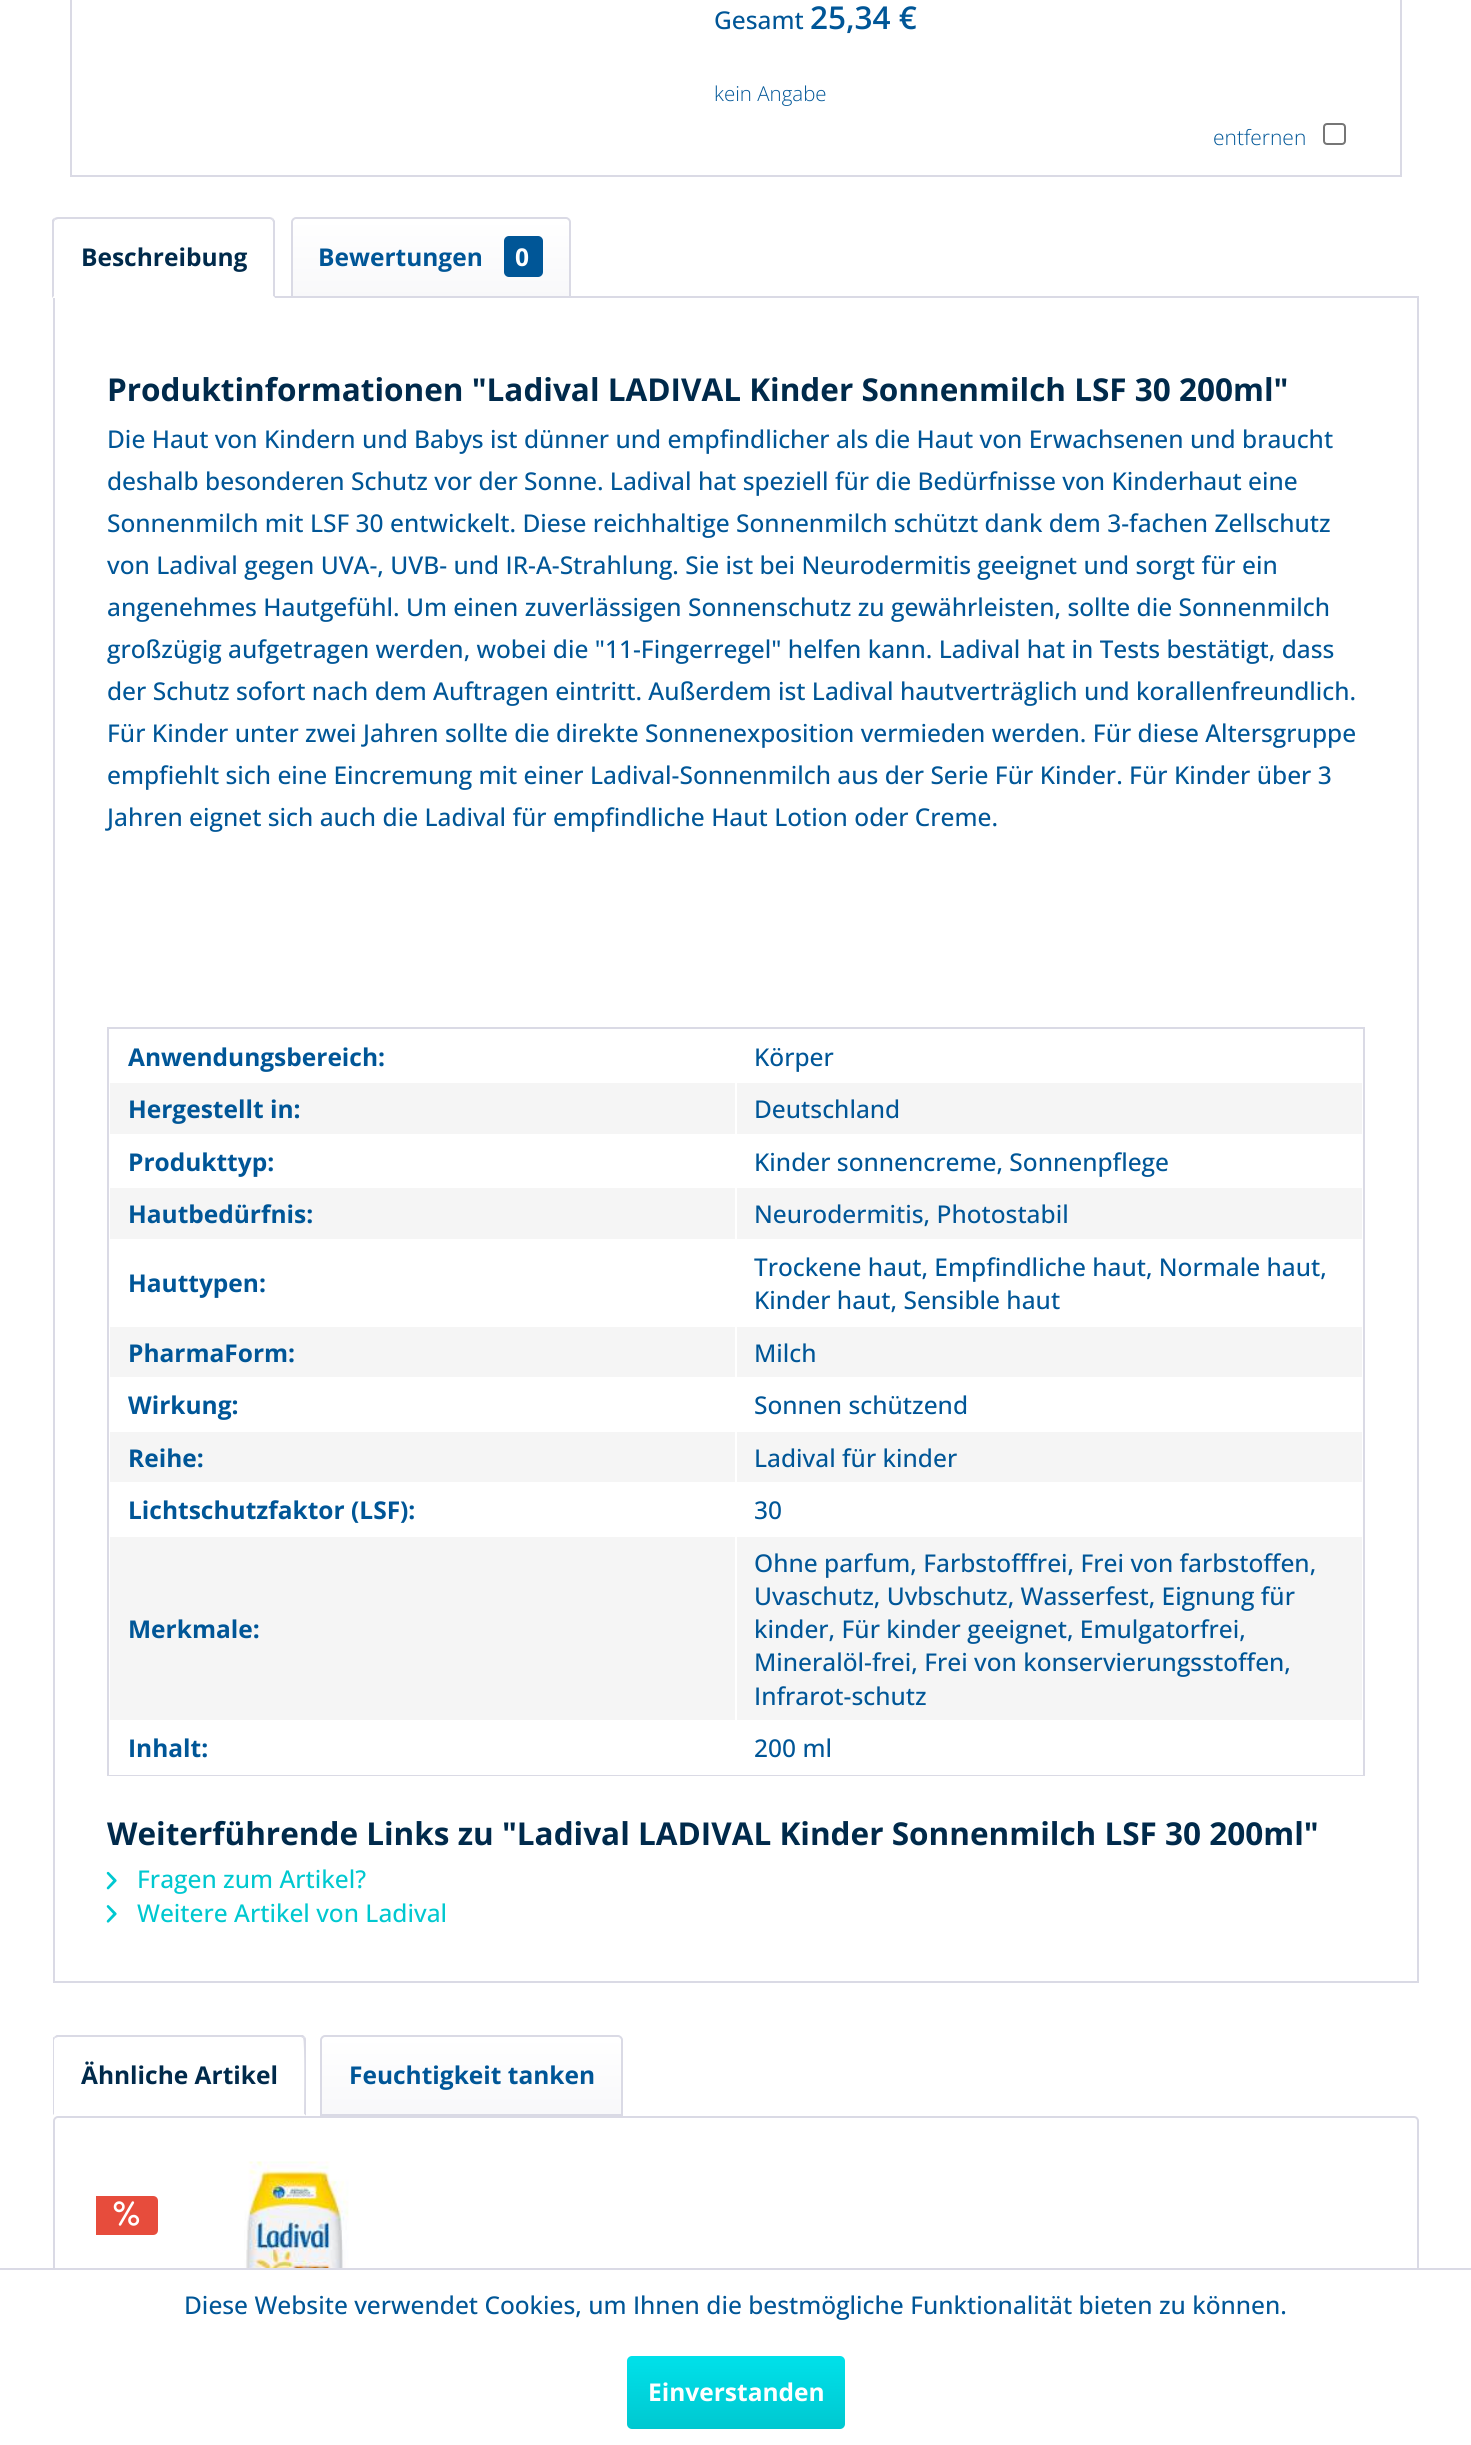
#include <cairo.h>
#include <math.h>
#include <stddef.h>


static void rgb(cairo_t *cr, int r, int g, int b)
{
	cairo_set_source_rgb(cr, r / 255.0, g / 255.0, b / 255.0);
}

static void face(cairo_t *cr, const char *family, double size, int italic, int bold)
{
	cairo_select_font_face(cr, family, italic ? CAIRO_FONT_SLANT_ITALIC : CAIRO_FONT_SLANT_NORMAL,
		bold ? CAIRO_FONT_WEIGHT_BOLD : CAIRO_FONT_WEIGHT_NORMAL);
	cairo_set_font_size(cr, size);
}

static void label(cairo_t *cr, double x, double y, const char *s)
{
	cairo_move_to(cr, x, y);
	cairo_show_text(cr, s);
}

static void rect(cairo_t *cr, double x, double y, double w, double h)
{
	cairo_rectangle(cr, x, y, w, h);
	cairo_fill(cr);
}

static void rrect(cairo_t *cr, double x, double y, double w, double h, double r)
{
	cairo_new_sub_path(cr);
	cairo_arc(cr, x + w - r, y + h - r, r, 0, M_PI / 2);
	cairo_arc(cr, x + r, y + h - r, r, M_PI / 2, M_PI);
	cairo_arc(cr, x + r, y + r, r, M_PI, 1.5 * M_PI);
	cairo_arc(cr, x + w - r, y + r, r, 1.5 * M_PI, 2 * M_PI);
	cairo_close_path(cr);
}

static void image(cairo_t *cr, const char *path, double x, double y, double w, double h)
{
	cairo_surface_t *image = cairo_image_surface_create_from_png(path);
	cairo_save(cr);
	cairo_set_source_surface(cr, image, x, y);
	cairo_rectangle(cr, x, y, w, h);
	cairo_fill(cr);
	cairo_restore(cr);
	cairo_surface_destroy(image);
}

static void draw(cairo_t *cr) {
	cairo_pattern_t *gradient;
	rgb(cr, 255, 255, 255);
	cairo_paint(cr);
	cairo_rectangle(cr, 71, -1, 1330, 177);
	rgb(cr, 218, 218, 229);
	cairo_stroke(cr);
	face(cr, "Open Sans Medium", 24.5, 0, 0);
	rgb(cr, 0, 86, 151);
	label(cr, 714, 29, "Gesamt");
	face(cr, "Open Sans SemiBold", 31.5, 0, 0);
	label(cr, 810, 29, "25,34 €");
	face(cr, "Open Sans Light", 20.5, 0, 0);
	label(cr, 714, 101, "kein Angabe");
	face(cr, "Open Sans Light", 21, 0, 0);
	label(cr, 1213, 145, "entfernen");
	rrect(cr, 1324, 124, 21, 20, 3);
	rgb(cr, 118, 118, 118);
	cairo_stroke(cr);
	cairo_rectangle(cr, 54, 297, 1364, 1685);
	rgb(cr, 218, 218, 229);
	cairo_stroke(cr);
	rgb(cr, 255, 255, 255);
	cairo_new_path(cr);
	cairo_move_to(cr, 58, 217);
	cairo_line_to(cr, 270, 217);
	cairo_curve_to(cr, 273, 217, 275, 219, 275, 222);
	cairo_line_to(cr, 275, 298);
	cairo_line_to(cr, 53, 298);
	cairo_line_to(cr, 53, 222);
	cairo_curve_to(cr, 53, 219, 55, 217, 58, 217);
	cairo_close_path(cr);
	cairo_fill(cr);
	rgb(cr, 218, 218, 229);
	cairo_new_path(cr);
	cairo_move_to(cr, 58, 217);
	cairo_curve_to(cr, 56, 217, 55, 218, 54, 218);
	cairo_line_to(cr, 55, 220);
	cairo_line_to(cr, 58, 219);
	cairo_line_to(cr, 270, 219);
	cairo_line_to(cr, 272, 220);
	cairo_line_to(cr, 273, 218);
	cairo_line_to(cr, 270, 217);
	cairo_close_path(cr);
	cairo_fill(cr);
	cairo_new_path(cr);
	cairo_move_to(cr, 273, 218);
	cairo_line_to(cr, 275, 221);
	cairo_line_to(cr, 275, 298);
	cairo_line_to(cr, 273, 296);
	cairo_line_to(cr, 273, 222);
	cairo_line_to(cr, 272, 220);
	cairo_close_path(cr);
	cairo_fill(cr);
	rgb(cr, 255, 255, 255);
	cairo_new_path(cr);
	cairo_move_to(cr, 275, 298);
	cairo_line_to(cr, 273, 296);
	cairo_line_to(cr, 54, 296);
	cairo_line_to(cr, 52, 298);
	cairo_close_path(cr);
	cairo_fill(cr);
	rgb(cr, 218, 218, 229);
	cairo_new_path(cr);
	cairo_move_to(cr, 52, 298);
	cairo_line_to(cr, 52, 220);
	cairo_line_to(cr, 54, 218);
	cairo_line_to(cr, 55, 220);
	cairo_line_to(cr, 54, 222);
	cairo_line_to(cr, 54, 296);
	cairo_close_path(cr);
	cairo_fill(cr);
	face(cr, "Open Sans", 24.5, 0, 1);
	rgb(cr, 0, 42, 75);
	label(cr, 81, 266, "Beschreibung");
	gradient = cairo_pattern_create_linear(431, 219, 431, 296);
	cairo_pattern_add_color_stop_rgba(gradient, 0, 1, 1, 1, 1);
	cairo_pattern_add_color_stop_rgba(gradient, 1, 0.973, 0.973, 0.98, 1);
	cairo_set_source(cr, gradient);
	cairo_pattern_destroy(gradient);
	cairo_new_path(cr);
	cairo_move_to(cr, 296, 219);
	cairo_line_to(cr, 565, 219);
	cairo_curve_to(cr, 567, 219, 569, 221, 569, 223);
	cairo_line_to(cr, 569, 296);
	cairo_line_to(cr, 292, 296);
	cairo_line_to(cr, 292, 223);
	cairo_curve_to(cr, 292, 221, 294, 219, 296, 219);
	cairo_close_path(cr);
	cairo_fill(cr);
	cairo_new_path(cr);
	cairo_move_to(cr, 296, 218);
	cairo_line_to(cr, 566, 218);
	cairo_curve_to(cr, 568, 218, 570, 220, 570, 222);
	cairo_line_to(cr, 570, 297);
	cairo_line_to(cr, 292, 297);
	cairo_line_to(cr, 292, 222);
	cairo_curve_to(cr, 292, 220, 294, 218, 296, 218);
	cairo_close_path(cr);
	rgb(cr, 218, 218, 229);
	cairo_stroke(cr);
	rgb(cr, 0, 86, 151);
	label(cr, 318, 266, "Bewertungen");
	rrect(cr, 504, 236, 39, 41, 5);
	cairo_fill(cr);
	rgb(cr, 255, 255, 255);
	label(cr, 515, 266, "0");
	face(cr, "Open Sans", 31.5, 0, 1);
	rgb(cr, 0, 42, 75);
	label(cr, 107, 401, "Produktinformationen \"Ladival LADIVAL Kinder Sonnenmilch LSF 30 200ml\"");
	face(cr, "Open Sans Medium", 24.5, 0, 0);
	rgb(cr, 0, 86, 151);
	label(cr, 107, 448, "Die Haut von Kindern und Babys ist dünner und empfindlicher als die Haut von Erwachsenen und braucht");
	label(cr, 107, 490, "deshalb besonderen Schutz vor der Sonne. Ladival hat speziell für die Bedürfnisse von Kinderhaut eine");
	label(cr, 107, 532, "Sonnenmilch mit LSF 30 entwickelt. Diese reichhaltige Sonnenmilch schützt dank dem 3-fachen Zellschutz");
	label(cr, 107, 574, "von Ladival gegen UVA-, UVB- und IR-A-Strahlung. Sie ist bei Neurodermitis geeignet und sorgt für ein");
	label(cr, 107, 616, "angenehmes Hautgefühl. Um einen zuverlässigen Sonnenschutz zu gewährleisten, sollte die Sonnenmilch");
	label(cr, 107, 658, "großzügig aufgetragen werden, wobei die \"11-Fingerregel\" helfen kann. Ladival hat in Tests bestätigt, dass");
	label(cr, 107, 700, "der Schutz sofort nach dem Auftragen eintritt. Außerdem ist Ladival hautverträglich und korallenfreundlich.");
	label(cr, 107, 742, "Für Kinder unter zwei Jahren sollte die direkte Sonnenexposition vermieden werden. Für diese Altersgruppe");
	label(cr, 107, 784, "empfiehlt sich eine Eincremung mit einer Ladival-Sonnenmilch aus der Serie Für Kinder. Für Kinder über 3");
	label(cr, 107, 826, "Jahren eignet sich auch die Ladival für empfindliche Haut Lotion oder Creme.");
	cairo_rectangle(cr, 108, 1028, 1256, 747);
	rgb(cr, 218, 218, 229);
	cairo_stroke(cr);
	rgb(cr, 255, 255, 255);
	rect(cr, 109, 1774, 1254, 1);
	face(cr, "Open Sans", 24.5, 0, 1);
	rgb(cr, 0, 86, 151);
	label(cr, 128, 1066, "Anwendungsbereich:");
	face(cr, "Open Sans Medium", 24.5, 0, 0);
	label(cr, 754, 1066, "Körper");
	rgb(cr, 245, 245, 245);
	rect(cr, 110, 1083, 625, 51);
	face(cr, "Open Sans", 24.5, 0, 1);
	rgb(cr, 0, 86, 151);
	label(cr, 128, 1118, "Hergestellt in:");
	rgb(cr, 245, 245, 245);
	rect(cr, 737, 1083, 625, 51);
	face(cr, "Open Sans Medium", 24.5, 0, 0);
	rgb(cr, 0, 86, 151);
	label(cr, 754, 1118, "Deutschland");
	face(cr, "Open Sans", 24.5, 0, 1);
	label(cr, 128, 1171, "Produkttyp:");
	face(cr, "Open Sans Medium", 24.5, 0, 0);
	label(cr, 754, 1171, "Kinder sonnencreme, Sonnenpflege");
	rgb(cr, 245, 245, 245);
	rect(cr, 110, 1188, 625, 51);
	face(cr, "Open Sans", 24.5, 0, 1);
	rgb(cr, 0, 86, 151);
	label(cr, 128, 1223, "Hautbedürfnis:");
	rgb(cr, 245, 245, 245);
	rect(cr, 737, 1188, 625, 51);
	face(cr, "Open Sans Medium", 24.5, 0, 0);
	rgb(cr, 0, 86, 151);
	label(cr, 754, 1223, "Neurodermitis, Photostabil");
	face(cr, "Open Sans", 24.5, 0, 1);
	label(cr, 128, 1292, "Hauttypen:");
	face(cr, "Open Sans Medium", 24.5, 0, 0);
	label(cr, 754, 1276, "Trockene haut, Empfindliche haut, Normale haut,");
	label(cr, 754, 1309, "Kinder haut, Sensible haut");
	rgb(cr, 245, 245, 245);
	rect(cr, 110, 1327, 625, 50);
	face(cr, "Open Sans", 24.5, 0, 1);
	rgb(cr, 0, 86, 151);
	label(cr, 128, 1362, "PharmaForm:");
	rgb(cr, 245, 245, 245);
	rect(cr, 737, 1327, 625, 50);
	face(cr, "Open Sans Medium", 24.5, 0, 0);
	rgb(cr, 0, 86, 151);
	label(cr, 754, 1362, "Milch");
	face(cr, "Open Sans", 24.5, 0, 1);
	label(cr, 128, 1414, "Wirkung:");
	face(cr, "Open Sans Medium", 24.5, 0, 0);
	label(cr, 754, 1414, "Sonnen schützend");
	rgb(cr, 245, 245, 245);
	rect(cr, 110, 1432, 625, 50);
	face(cr, "Open Sans", 24.5, 0, 1);
	rgb(cr, 0, 86, 151);
	label(cr, 128, 1467, "Reihe:");
	rgb(cr, 245, 245, 245);
	rect(cr, 737, 1432, 625, 50);
	face(cr, "Open Sans Medium", 24.5, 0, 0);
	rgb(cr, 0, 86, 151);
	label(cr, 754, 1467, "Ladival für kinder");
	face(cr, "Open Sans", 24.5, 0, 1);
	label(cr, 128, 1519, "Lichtschutzfaktor (LSF):");
	face(cr, "Open Sans Medium", 24.5, 0, 0);
	label(cr, 754, 1519, "30");
	rgb(cr, 245, 245, 245);
	rect(cr, 110, 1537, 625, 183);
	face(cr, "Open Sans", 24.5, 0, 1);
	rgb(cr, 0, 86, 151);
	label(cr, 128, 1638, "Merkmale:");
	rgb(cr, 245, 245, 245);
	rect(cr, 737, 1537, 625, 183);
	face(cr, "Open Sans Medium", 24.5, 0, 0);
	rgb(cr, 0, 86, 151);
	label(cr, 754, 1572, "Ohne parfum, Farbstofffrei, Frei von farbstoffen,");
	label(cr, 754, 1605, "Uvaschutz, Uvbschutz, Wasserfest, Eignung für");
	label(cr, 754, 1638, "kinder, Für kinder geeignet, Emulgatorfrei,");
	label(cr, 754, 1671, "Mineralöl-frei, Frei von konservierungsstoffen,");
	label(cr, 754, 1705, "Infrarot-schutz");
	face(cr, "Open Sans", 24.5, 0, 1);
	label(cr, 128, 1757, "Inhalt:");
	face(cr, "Open Sans Medium", 24.5, 0, 0);
	label(cr, 754, 1757, "200 ml");
	face(cr, "Open Sans", 31.5, 0, 1);
	rgb(cr, 0, 42, 75);
	label(cr, 107, 1845, "Weiterführende Links zu \"Ladival LADIVAL Kinder Sonnenmilch LSF 30 200ml\"");
	image(cr, "image0.png", 106, 1871, 11, 19);
	face(cr, "Open Sans Medium", 24.5, 0, 0);
	rgb(cr, 0, 200, 208);
	label(cr, 137, 1888, "Fragen zum Artikel?");
	image(cr, "image1.png", 106, 1905, 11, 18);
	label(cr, 137, 1922, "Weitere Artikel von Ladival");
	cairo_save(cr);
	cairo_rectangle(cr, 53, 2035, 1366, 81);
	cairo_clip(cr);
	rgb(cr, 218, 218, 229);
	cairo_new_path(cr);
	cairo_move_to(cr, 58, 2037);
	cairo_line_to(cr, 55, 2038);
	cairo_line_to(cr, 54, 2037);
	cairo_curve_to(cr, 65, 2027, 83, 2035, 97, 2035);
	cairo_line_to(cr, 303, 2035);
	cairo_line_to(cr, 305, 2037);
	cairo_line_to(cr, 303, 2038);
	cairo_line_to(cr, 301, 2037);
	cairo_close_path(cr);
	cairo_fill(cr);
	cairo_restore(cr);
	rgb(cr, 218, 218, 229);
	cairo_new_path(cr);
	cairo_move_to(cr, 305, 2037);
	cairo_curve_to(cr, 306, 2038, 306, 2039, 306, 2040);
	cairo_line_to(cr, 306, 2116);
	cairo_line_to(cr, 304, 2114);
	cairo_curve_to(cr, 304, 2105, 305, 2041, 303, 2038);
	cairo_close_path(cr);
	cairo_fill(cr);
	rgb(cr, 255, 255, 255);
	cairo_new_path(cr);
	cairo_move_to(cr, 306, 2116);
	cairo_line_to(cr, 52, 2116);
	cairo_line_to(cr, 54, 2114);
	cairo_line_to(cr, 304, 2114);
	cairo_close_path(cr);
	cairo_fill(cr);
	cairo_save(cr);
	cairo_rectangle(cr, 53, 2035, 1366, 81);
	cairo_clip(cr);
	rgb(cr, 218, 218, 229);
	cairo_new_path(cr);
	cairo_move_to(cr, 52, 2116);
	cairo_line_to(cr, 52, 2038);
	cairo_line_to(cr, 54, 2037);
	cairo_line_to(cr, 55, 2038);
	cairo_line_to(cr, 54, 2040);
	cairo_line_to(cr, 54, 2114);
	cairo_close_path(cr);
	cairo_fill(cr);
	cairo_restore(cr);
	face(cr, "Open Sans", 24.5, 0, 1);
	rgb(cr, 0, 42, 75);
	label(cr, 81, 2084, "Ähnliche Artikel");
	gradient = cairo_pattern_create_linear(472, 2037, 472, 2114);
	cairo_pattern_add_color_stop_rgba(gradient, 0, 1, 1, 1, 1);
	cairo_pattern_add_color_stop_rgba(gradient, 1, 0.973, 0.973, 0.98, 1);
	cairo_set_source(cr, gradient);
	cairo_pattern_destroy(gradient);
	cairo_new_path(cr);
	cairo_move_to(cr, 326, 2037);
	cairo_line_to(cr, 617, 2037);
	cairo_curve_to(cr, 619, 2037, 621, 2039, 621, 2041);
	cairo_line_to(cr, 621, 2114);
	cairo_line_to(cr, 322, 2114);
	cairo_line_to(cr, 322, 2041);
	cairo_curve_to(cr, 322, 2039, 324, 2037, 326, 2037);
	cairo_close_path(cr);
	cairo_fill(cr);
	cairo_new_path(cr);
	cairo_move_to(cr, 325, 2036);
	cairo_line_to(cr, 618, 2036);
	cairo_curve_to(cr, 620, 2036, 622, 2038, 622, 2040);
	cairo_line_to(cr, 622, 2115);
	cairo_line_to(cr, 321, 2115);
	cairo_line_to(cr, 321, 2040);
	cairo_curve_to(cr, 321, 2038, 323, 2036, 325, 2036);
	cairo_close_path(cr);
	rgb(cr, 218, 218, 229);
	cairo_stroke(cr);
	rgb(cr, 0, 86, 151);
	label(cr, 349, 2084, "Feuchtigkeit tanken");
	rrect(cr, 54, 2117, 1364, 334, 4);
	rgb(cr, 218, 218, 229);
	cairo_stroke(cr);
	rgb(cr, 231, 76, 60);
	cairo_new_path(cr);
	cairo_move_to(cr, 96, 2196);
	cairo_line_to(cr, 153, 2196);
	cairo_curve_to(cr, 156, 2196, 158, 2198, 158, 2201);
	cairo_line_to(cr, 158, 2230);
	cairo_curve_to(cr, 158, 2233, 156, 2235, 153, 2235);
	cairo_line_to(cr, 96, 2235);
	cairo_close_path(cr);
	cairo_fill(cr);
	image(cr, "image2.png", 113, 2201, 27, 25);
	image(cr, "image3.png", 244, 2161, 105, 107);
	rgb(cr, 255, 255, 255);
	rect(cr, 53, 2270, 1366, 175);
	rgb(cr, 218, 218, 229);
	rect(cr, 0, 2268, 1471, 2);
	face(cr, "Open Sans Medium", 24.5, 0, 0);
	rgb(cr, 0, 86, 151);
	label(cr, 184, 2314, "Diese Website verwendet Cookies, um Ihnen die bestmögliche Funktionalität bieten zu können.");
	gradient = cairo_pattern_create_linear(736, 2356, 736, 2429);
	cairo_pattern_add_color_stop_rgba(gradient, 0, 0, 0.882, 0.918, 1);
	cairo_pattern_add_color_stop_rgba(gradient, 1, 0, 0.784, 0.816, 1);
	cairo_set_source(cr, gradient);
	cairo_pattern_destroy(gradient);
	rrect(cr, 627, 2356, 218, 73, 5);
	cairo_fill(cr);
	face(cr, "Open Sans", 24.5, 0, 1);
	rgb(cr, 255, 255, 255);
	label(cr, 648, 2401, "Einverstanden");
}

int main(void) {
	cairo_surface_t *surface = cairo_image_surface_create(CAIRO_FORMAT_RGB24, 1471, 2445);
	cairo_t *cr = cairo_create(surface);
	cairo_font_options_t *options = cairo_font_options_create();
	cairo_font_options_set_hint_metrics(options, CAIRO_HINT_METRICS_OFF);
	cairo_font_options_set_hint_style(options, CAIRO_HINT_STYLE_NONE);
	cairo_set_font_options(cr, options);
	cairo_set_miter_limit(cr, 4);
	draw(cr);
	cairo_surface_write_to_png(surface, "render.png");
	cairo_font_options_destroy(options);
	cairo_destroy(cr);
	cairo_surface_destroy(surface);
	return 0;
}
